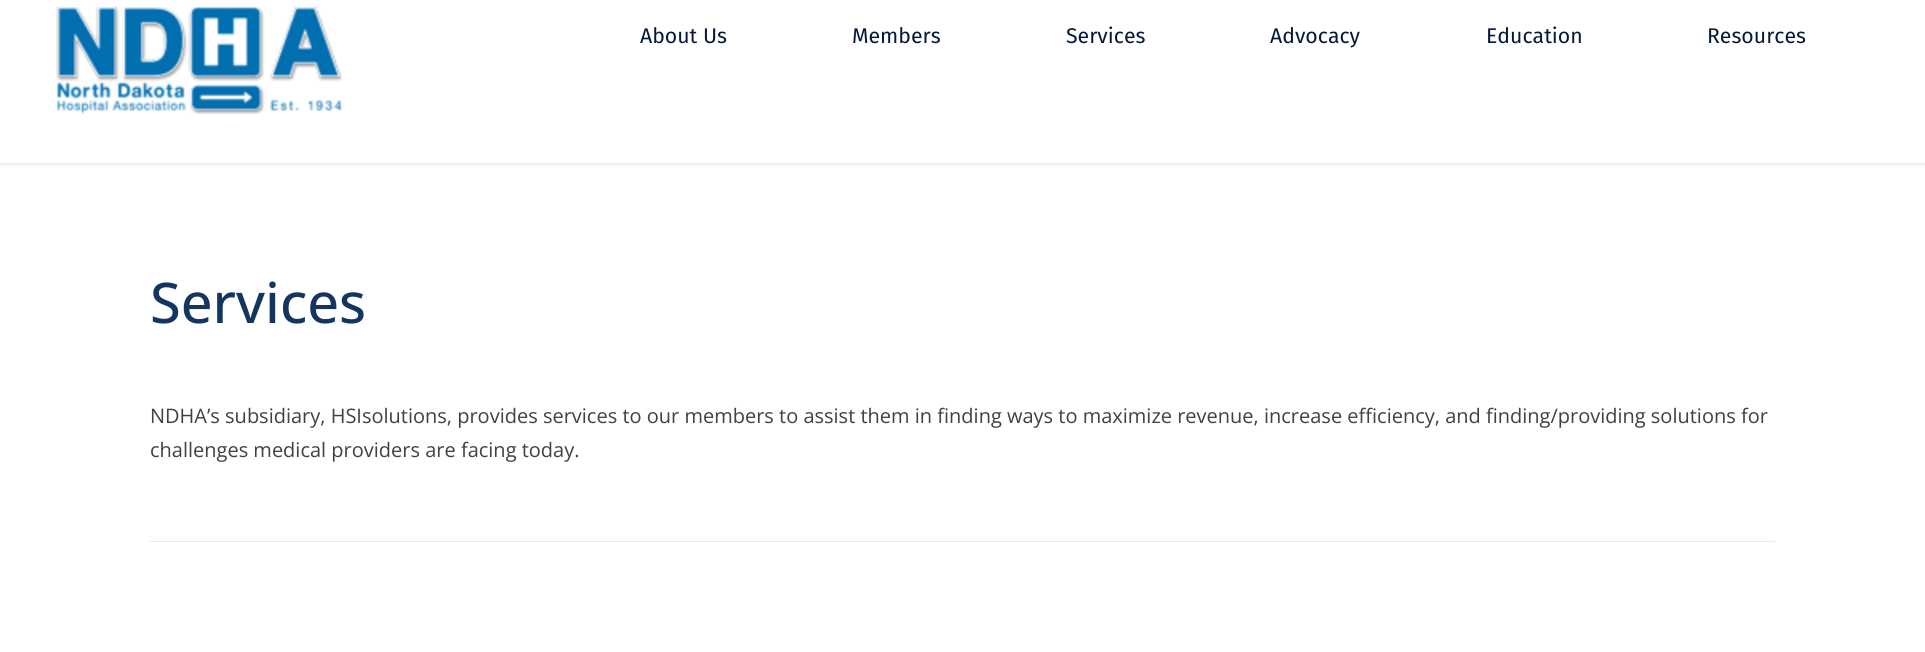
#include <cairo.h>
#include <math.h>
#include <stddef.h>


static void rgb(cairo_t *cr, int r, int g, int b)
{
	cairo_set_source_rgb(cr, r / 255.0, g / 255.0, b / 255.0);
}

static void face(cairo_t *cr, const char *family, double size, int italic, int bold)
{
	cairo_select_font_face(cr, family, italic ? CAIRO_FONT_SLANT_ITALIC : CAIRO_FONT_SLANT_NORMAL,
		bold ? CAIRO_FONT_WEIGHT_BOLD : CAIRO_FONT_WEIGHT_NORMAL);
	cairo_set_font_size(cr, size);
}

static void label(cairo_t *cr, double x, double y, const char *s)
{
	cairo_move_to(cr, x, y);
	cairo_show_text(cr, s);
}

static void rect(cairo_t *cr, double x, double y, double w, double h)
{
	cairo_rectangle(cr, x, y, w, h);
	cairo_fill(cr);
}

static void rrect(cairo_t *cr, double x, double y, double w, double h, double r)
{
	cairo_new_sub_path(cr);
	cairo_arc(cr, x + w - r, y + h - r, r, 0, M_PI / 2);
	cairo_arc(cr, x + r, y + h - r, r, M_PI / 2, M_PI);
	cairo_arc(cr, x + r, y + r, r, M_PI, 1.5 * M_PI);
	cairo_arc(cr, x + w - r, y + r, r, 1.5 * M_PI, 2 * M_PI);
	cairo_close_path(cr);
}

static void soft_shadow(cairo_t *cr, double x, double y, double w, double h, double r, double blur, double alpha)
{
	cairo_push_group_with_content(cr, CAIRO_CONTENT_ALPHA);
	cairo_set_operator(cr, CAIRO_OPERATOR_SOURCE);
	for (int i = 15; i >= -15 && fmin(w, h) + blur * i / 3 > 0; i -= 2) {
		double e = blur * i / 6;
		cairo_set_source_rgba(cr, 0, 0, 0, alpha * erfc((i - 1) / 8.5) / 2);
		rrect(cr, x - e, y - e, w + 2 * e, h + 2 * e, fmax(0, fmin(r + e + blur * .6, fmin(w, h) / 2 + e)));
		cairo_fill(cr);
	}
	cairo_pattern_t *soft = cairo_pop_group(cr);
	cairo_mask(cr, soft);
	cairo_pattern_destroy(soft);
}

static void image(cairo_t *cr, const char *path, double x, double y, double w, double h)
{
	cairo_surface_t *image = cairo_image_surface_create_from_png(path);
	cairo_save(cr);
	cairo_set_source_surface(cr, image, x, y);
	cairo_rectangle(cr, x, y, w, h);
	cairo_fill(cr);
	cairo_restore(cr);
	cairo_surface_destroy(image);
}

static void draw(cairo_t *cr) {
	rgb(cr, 255, 255, 255);
	cairo_paint(cr);
	rgb(cr, 0, 0, 0);
	soft_shadow(cr, 0, 1, 1925, 163, 0, 2, 0.11);
	rgb(cr, 255, 255, 255);
	rect(cr, 0, 0, 1925, 163);
	image(cr, "image0.png", 56, 6, 287, 109);
	face(cr, "Fira Sans", 21.25, 0, 0);
	rgb(cr, 5, 24, 58);
	label(cr, 640, 43, "About Us");
	label(cr, 852, 43, "Members");
	label(cr, 1066, 43, "Services");
	label(cr, 1270, 43, "Advocacy");
	label(cr, 1486, 43, "Education");
	label(cr, 1707, 43, "Resources");
	face(cr, "Open Sans Medium", 56, 0, 0);
	rgb(cr, 20, 53, 96);
	label(cr, 150, 323, "Services");
	face(cr, "Open Sans", 20, 0, 0);
	rgb(cr, 64, 66, 64);
	label(cr, 150, 423, "NDHA’s subsidiary, HSIsolutions, provides services to our members to assist them in finding ways to maximize revenue, increase efficiency, and finding/providing solutions for");
	label(cr, 150, 457, "challenges medical providers are facing today.");
	rgb(cr, 234, 234, 234);
	rect(cr, 150, 541, 1625, 1);
}

int main(void) {
	cairo_surface_t *surface = cairo_image_surface_create(CAIRO_FORMAT_RGB24, 1925, 652);
	cairo_t *cr = cairo_create(surface);
	cairo_font_options_t *options = cairo_font_options_create();
	cairo_font_options_set_hint_metrics(options, CAIRO_HINT_METRICS_OFF);
	cairo_font_options_set_hint_style(options, CAIRO_HINT_STYLE_NONE);
	cairo_set_font_options(cr, options);
	cairo_set_miter_limit(cr, 4);
	draw(cr);
	cairo_surface_write_to_png(surface, "render.png");
	cairo_font_options_destroy(options);
	cairo_destroy(cr);
	cairo_surface_destroy(surface);
	return 0;
}
